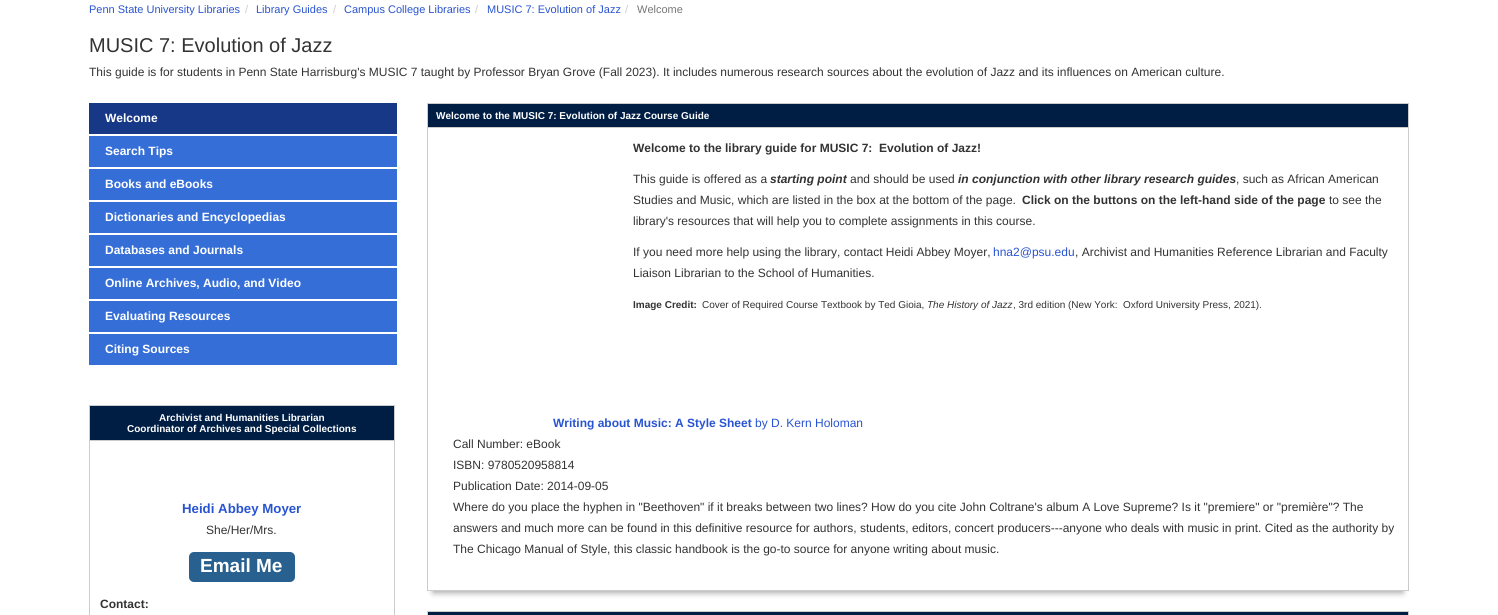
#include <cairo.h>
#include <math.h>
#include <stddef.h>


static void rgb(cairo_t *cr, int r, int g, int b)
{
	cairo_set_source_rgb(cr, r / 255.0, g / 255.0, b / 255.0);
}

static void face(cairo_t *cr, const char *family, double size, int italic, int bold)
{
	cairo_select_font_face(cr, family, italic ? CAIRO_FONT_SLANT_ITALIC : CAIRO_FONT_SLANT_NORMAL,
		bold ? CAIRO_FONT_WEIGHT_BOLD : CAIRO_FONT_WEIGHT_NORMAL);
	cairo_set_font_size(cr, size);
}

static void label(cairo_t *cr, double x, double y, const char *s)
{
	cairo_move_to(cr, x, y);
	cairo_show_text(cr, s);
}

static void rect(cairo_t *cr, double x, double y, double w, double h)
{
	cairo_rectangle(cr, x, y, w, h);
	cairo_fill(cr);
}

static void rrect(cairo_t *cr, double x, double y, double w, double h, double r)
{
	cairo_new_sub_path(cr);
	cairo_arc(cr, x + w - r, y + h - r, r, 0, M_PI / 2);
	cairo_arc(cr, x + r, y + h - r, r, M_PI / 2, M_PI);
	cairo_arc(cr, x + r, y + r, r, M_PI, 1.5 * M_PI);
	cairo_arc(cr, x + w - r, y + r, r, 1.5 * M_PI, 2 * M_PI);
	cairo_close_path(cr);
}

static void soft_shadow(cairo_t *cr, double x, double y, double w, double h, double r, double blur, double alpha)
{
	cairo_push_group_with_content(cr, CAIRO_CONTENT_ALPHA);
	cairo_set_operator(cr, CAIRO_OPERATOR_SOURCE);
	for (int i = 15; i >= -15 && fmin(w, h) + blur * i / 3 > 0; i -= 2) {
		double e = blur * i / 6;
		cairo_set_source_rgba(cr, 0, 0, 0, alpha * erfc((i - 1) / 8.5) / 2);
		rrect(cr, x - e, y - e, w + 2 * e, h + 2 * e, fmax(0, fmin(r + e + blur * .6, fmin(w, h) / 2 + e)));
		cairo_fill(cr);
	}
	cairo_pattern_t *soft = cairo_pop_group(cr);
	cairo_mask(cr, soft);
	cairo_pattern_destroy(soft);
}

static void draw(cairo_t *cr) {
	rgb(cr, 255, 255, 255);
	cairo_paint(cr);
	face(cr, "Liberation Sans", 11, 0, 0);
	rgb(cr, 41, 84, 209);
	label(cr, 89, 13, "Penn State University Libraries");
	rgb(cr, 204, 204, 204);
	label(cr, 245, 13, "/");
	rgb(cr, 41, 84, 209);
	label(cr, 256, 13, "Library Guides");
	rgb(cr, 204, 204, 204);
	label(cr, 333, 13, "/");
	rgb(cr, 41, 84, 209);
	label(cr, 344, 13, "Campus College Libraries");
	rgb(cr, 204, 204, 204);
	label(cr, 475, 13, "/");
	rgb(cr, 41, 84, 209);
	label(cr, 487, 13, "MUSIC 7: Evolution of Jazz");
	rgb(cr, 204, 204, 204);
	label(cr, 625, 13, "/");
	rgb(cr, 118, 118, 118);
	label(cr, 637, 13, "Welcome");
	face(cr, "Liberation Sans", 20, 0, 0);
	rgb(cr, 51, 51, 51);
	label(cr, 89, 52, "MUSIC 7: Evolution of Jazz");
	face(cr, "Liberation Sans", 12, 0, 0);
	label(cr, 89, 76, "This guide is for students in Penn State Harrisburg's MUSIC 7 taught by Professor Bryan Grove (Fall 2023). It includes numerous research sources about the evolution of Jazz and its influences on American culture.");
	rgb(cr, 23, 56, 135);
	rect(cr, 89, 103, 308, 31);
	face(cr, "Liberation Sans", 12, 0, 1);
	rgb(cr, 255, 255, 255);
	label(cr, 105, 122, "Welcome");
	rgb(cr, 53, 110, 215);
	rect(cr, 89, 136, 308, 31);
	rgb(cr, 255, 255, 255);
	label(cr, 105, 155, "Search Tips");
	rgb(cr, 53, 110, 215);
	rect(cr, 89, 169, 308, 31);
	rgb(cr, 255, 255, 255);
	label(cr, 105, 188, "Books and eBooks");
	rgb(cr, 53, 110, 215);
	rect(cr, 89, 202, 308, 31);
	rgb(cr, 255, 255, 255);
	label(cr, 105, 221, "Dictionaries and Encyclopedias");
	rgb(cr, 53, 110, 215);
	rect(cr, 89, 235, 308, 31);
	rgb(cr, 255, 255, 255);
	label(cr, 105, 254, "Databases and Journals");
	rgb(cr, 53, 110, 215);
	rect(cr, 89, 268, 308, 31);
	rgb(cr, 255, 255, 255);
	label(cr, 105, 287, "Online Archives, Audio, and Video");
	rgb(cr, 53, 110, 215);
	rect(cr, 89, 301, 308, 31);
	rgb(cr, 255, 255, 255);
	label(cr, 105, 320, "Evaluating Resources");
	rgb(cr, 53, 110, 215);
	rect(cr, 89, 334, 308, 31);
	rgb(cr, 255, 255, 255);
	label(cr, 105, 353, "Citing Sources");
	cairo_rectangle(cr, 89.5, 405.5, 305, 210);
	rgb(cr, 204, 204, 204);
	cairo_set_line_width(cr, 1);
	cairo_stroke(cr);
	rgb(cr, 0, 30, 68);
	rect(cr, 90, 406, 304, 34);
	rgb(cr, 204, 204, 204);
	rect(cr, 90, 440, 304, 1);
	face(cr, "Liberation Sans", 10, 0, 1);
	rgb(cr, 255, 255, 255);
	label(cr, 159, 421, "Archivist and Humanities Librarian");
	label(cr, 127, 432, "Coordinator of Archives and Special Collections");
	face(cr, "Liberation Sans", 13.25, 0, 1);
	rgb(cr, 41, 84, 209);
	label(cr, 182, 513, "Heidi Abbey Moyer");
	face(cr, "Liberation Sans", 12, 0, 0);
	rgb(cr, 51, 51, 51);
	label(cr, 206, 534, "She/Her/Mrs.");
	rgb(cr, 40, 96, 144);
	rrect(cr, 189, 552, 106, 30, 5);
	cairo_fill(cr);
	face(cr, "Liberation Sans", 19, 0, 1);
	rgb(cr, 255, 255, 255);
	label(cr, 200, 572, "Email Me");
	face(cr, "Liberation Sans", 12, 0, 1);
	rgb(cr, 51, 51, 51);
	label(cr, 100, 608, "Contact:");
	cairo_save(cr);
	cairo_rectangle(cr, 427, 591, 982, 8);
	cairo_clip(cr);
	rgb(cr, 170, 170, 170);
	soft_shadow(cr, 433, 117, 970, 476, 0, 3, 1);
	cairo_restore(cr);
	cairo_rectangle(cr, 427.5, 103.5, 981, 487);
	rgb(cr, 204, 204, 204);
	cairo_stroke(cr);
	rgb(cr, 0, 30, 68);
	rect(cr, 428, 104, 980, 23);
	rgb(cr, 204, 204, 204);
	rect(cr, 428, 127, 980, 1);
	face(cr, "Liberation Sans", 10, 0, 1);
	rgb(cr, 255, 255, 255);
	label(cr, 436, 119, "Welcome to the MUSIC 7: Evolution of Jazz Course Guide");
	face(cr, "Liberation Sans", 12, 0, 1);
	rgb(cr, 51, 51, 51);
	label(cr, 633, 152, "Welcome to the library guide for MUSIC 7:  Evolution of Jazz!");
	face(cr, "Liberation Sans", 12, 0, 0);
	label(cr, 633, 183, "This guide is offered as a");
	face(cr, "Liberation Sans", 12, 1, 1);
	label(cr, 770, 183, "starting point");
	face(cr, "Liberation Sans", 12, 0, 0);
	label(cr, 850, 183, "and should be used");
	face(cr, "Liberation Sans", 12, 1, 1);
	label(cr, 958, 183, "in conjunction with other library research guides");
	face(cr, "Liberation Sans", 12, 0, 0);
	label(cr, 1236, 183, ", such as African American");
	label(cr, 633, 204, "Studies and Music, which are listed in the box at the bottom of the page.");
	face(cr, "Liberation Sans", 12, 0, 1);
	label(cr, 1022, 204, "Click on the buttons on the left-hand side of the page");
	face(cr, "Liberation Sans", 12, 0, 0);
	label(cr, 1329, 204, "to see the");
	label(cr, 633, 225, "library's resources that will help you to complete assignments in this course.");
	label(cr, 633, 256, "If you need more help using the library, contact Heidi Abbey Moyer,");
	rgb(cr, 41, 84, 209);
	label(cr, 993, 256, "hna2@psu.edu");
	rgb(cr, 51, 51, 51);
	label(cr, 1075, 256, ", Archivist and Humanities Reference Librarian and Faculty");
	label(cr, 633, 277, "Liaison Librarian to the School of Humanities.");
	face(cr, "Liberation Sans", 10, 0, 1);
	label(cr, 633, 308, "Image Credit:");
	face(cr, "Liberation Sans", 10, 0, 0);
	label(cr, 702, 308, "Cover of Required Course Textbook by Ted Gioia,");
	face(cr, "Liberation Sans", 10, 1, 0);
	label(cr, 927, 308, "The History of Jazz");
	face(cr, "Liberation Sans", 10, 0, 0);
	label(cr, 1013, 308, ", 3rd edition (New York:  Oxford University Press, 2021).");
	face(cr, "Liberation Sans", 12, 0, 1);
	rgb(cr, 41, 84, 209);
	label(cr, 553, 427, "Writing about Music: A Style Sheet");
	face(cr, "Liberation Sans", 12, 0, 0);
	label(cr, 755, 427, "by D. Kern Holoman");
	rgb(cr, 51, 51, 51);
	label(cr, 453, 448, "Call Number: eBook");
	label(cr, 453, 469, "ISBN: 9780520958814");
	label(cr, 453, 490, "Publication Date: 2014-09-05");
	label(cr, 453, 511, "Where do you place the hyphen in \"Beethoven\" if it breaks between two lines? How do you cite John Coltrane's album A Love Supreme? Is it \"premiere\" or \"première\"? The");
	label(cr, 453, 532, "answers and much more can be found in this definitive resource for authors, students, editors, concert producers---anyone who deals with music in print. Cited as the authority by");
	label(cr, 453, 553, "The Chicago Manual of Style, this classic handbook is the go-to source for anyone writing about music.");
	cairo_rectangle(cr, 427.5, 611.5, 981, 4);
	rgb(cr, 204, 204, 204);
	cairo_stroke(cr);
	rgb(cr, 0, 30, 68);
	rect(cr, 428, 612, 980, 3);
}

int main(void) {
	cairo_surface_t *surface = cairo_image_surface_create(CAIRO_FORMAT_RGB24, 1498, 615);
	cairo_t *cr = cairo_create(surface);
	cairo_font_options_t *options = cairo_font_options_create();
	cairo_font_options_set_hint_metrics(options, CAIRO_HINT_METRICS_OFF);
	cairo_font_options_set_hint_style(options, CAIRO_HINT_STYLE_NONE);
	cairo_set_font_options(cr, options);
	cairo_set_miter_limit(cr, 4);
	draw(cr);
	cairo_surface_write_to_png(surface, "render.png");
	cairo_font_options_destroy(options);
	cairo_destroy(cr);
	cairo_surface_destroy(surface);
	return 0;
}
